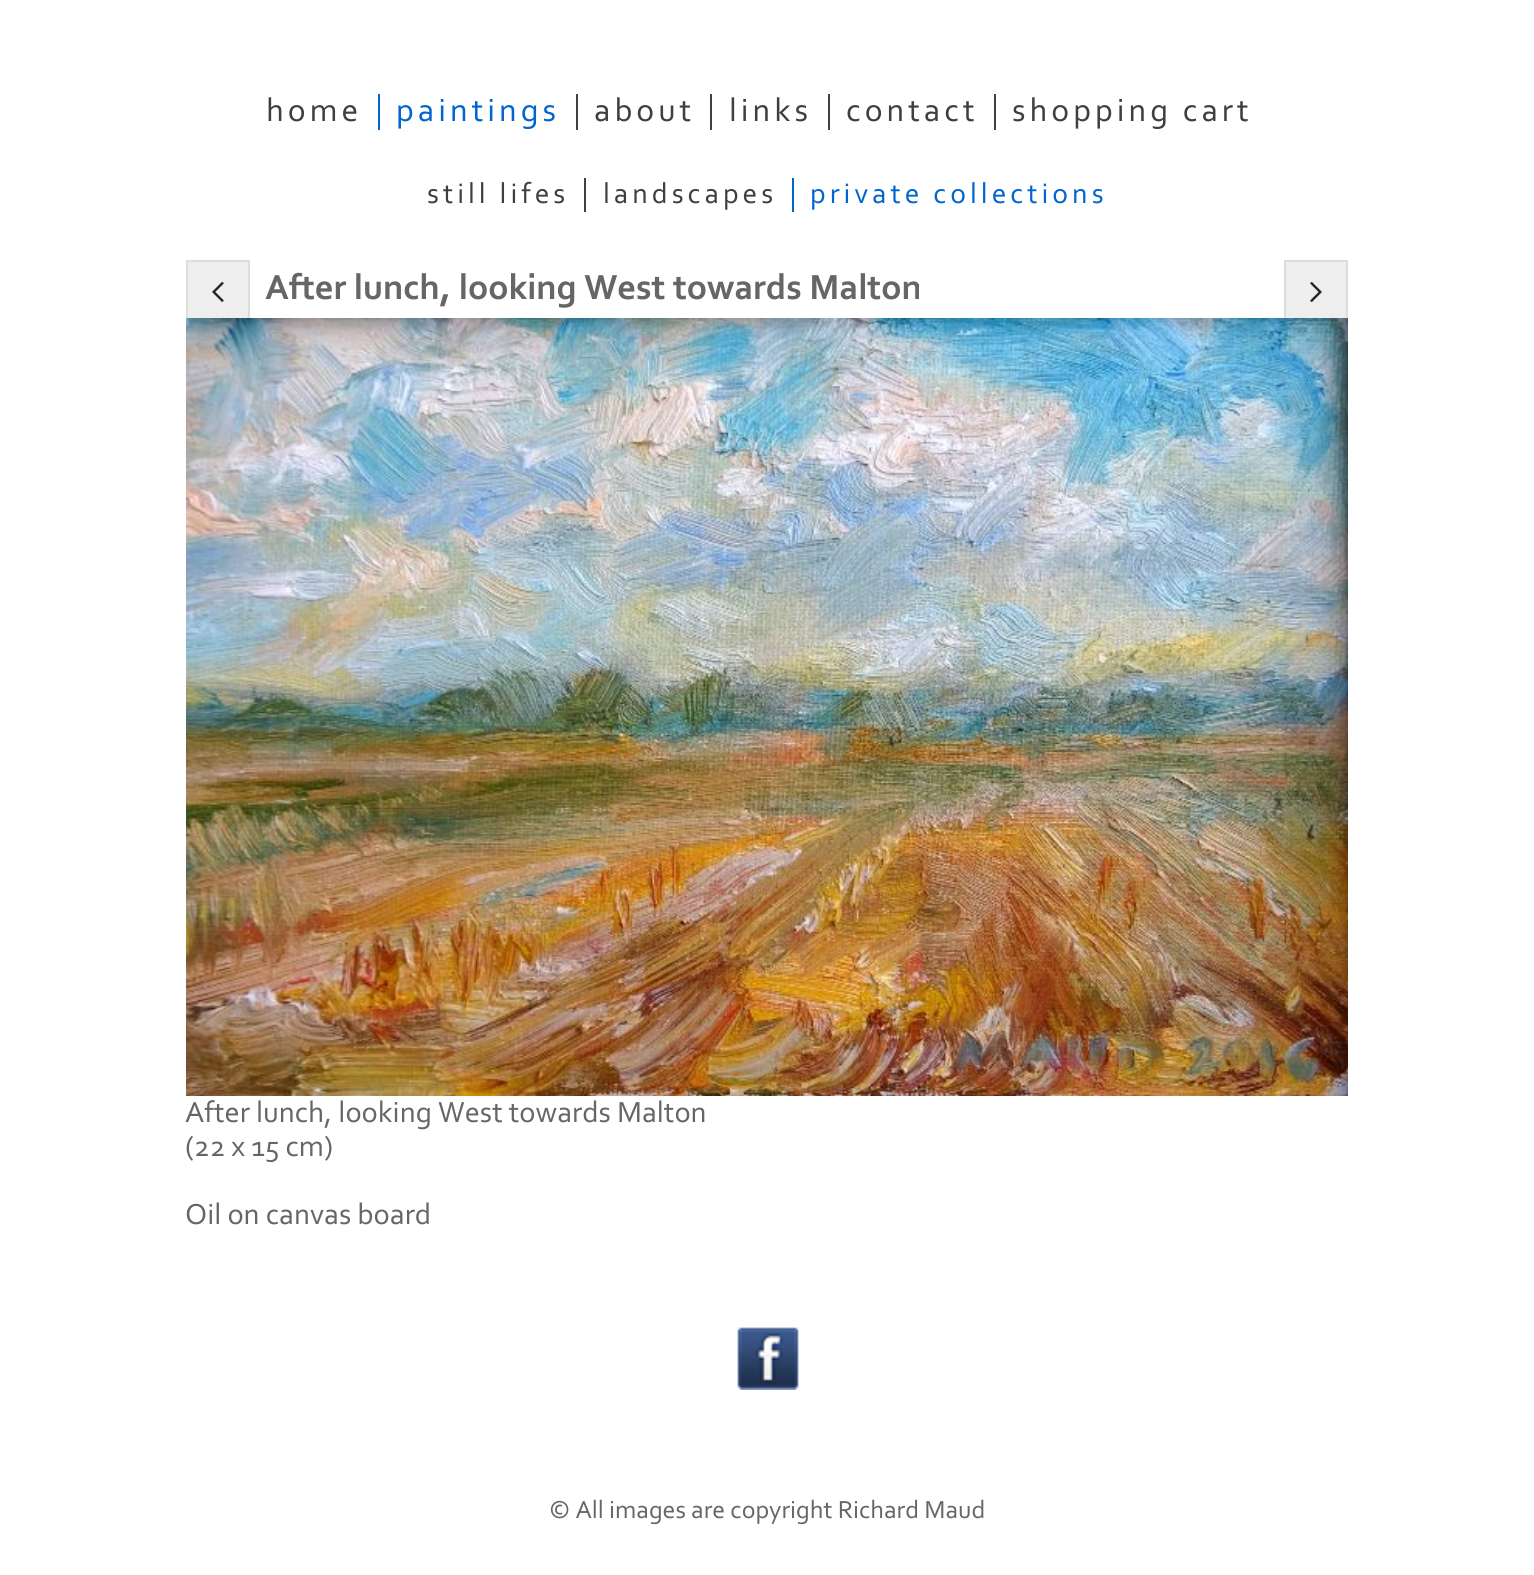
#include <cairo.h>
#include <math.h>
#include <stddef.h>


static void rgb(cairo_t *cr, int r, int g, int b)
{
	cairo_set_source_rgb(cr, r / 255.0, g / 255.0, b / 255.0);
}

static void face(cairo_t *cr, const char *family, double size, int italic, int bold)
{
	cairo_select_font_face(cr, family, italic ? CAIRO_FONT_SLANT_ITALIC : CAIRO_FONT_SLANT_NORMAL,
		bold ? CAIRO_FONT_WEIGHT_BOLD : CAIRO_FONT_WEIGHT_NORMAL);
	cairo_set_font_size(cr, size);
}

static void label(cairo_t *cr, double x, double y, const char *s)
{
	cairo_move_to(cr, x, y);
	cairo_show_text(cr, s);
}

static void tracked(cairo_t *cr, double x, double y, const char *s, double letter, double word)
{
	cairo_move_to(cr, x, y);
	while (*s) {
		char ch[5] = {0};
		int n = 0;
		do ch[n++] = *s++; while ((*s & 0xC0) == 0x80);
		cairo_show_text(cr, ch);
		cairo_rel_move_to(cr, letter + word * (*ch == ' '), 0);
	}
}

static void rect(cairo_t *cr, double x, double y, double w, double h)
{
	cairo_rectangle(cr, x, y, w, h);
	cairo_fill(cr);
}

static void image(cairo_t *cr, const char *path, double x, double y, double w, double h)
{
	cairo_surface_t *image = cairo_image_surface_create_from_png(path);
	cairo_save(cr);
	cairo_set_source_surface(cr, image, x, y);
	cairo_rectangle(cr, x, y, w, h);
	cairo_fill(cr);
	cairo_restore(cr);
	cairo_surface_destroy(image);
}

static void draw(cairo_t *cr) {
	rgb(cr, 255, 255, 255);
	cairo_paint(cr);
	face(cr, "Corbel", 33.5, 0, 0);
	rgb(cr, 63, 63, 63);
	tracked(cr, 266, 121, "home", 4, 0);
	rgb(cr, 0, 101, 207);
	rect(cr, 378, 94, 2, 36);
	tracked(cr, 396, 121, "paintings", 4, 0);
	rgb(cr, 63, 63, 63);
	rect(cr, 576, 94, 2, 36);
	tracked(cr, 594, 121, "about", 4, 0);
	rect(cr, 710, 94, 2, 36);
	tracked(cr, 729, 121, "links", 4, 0);
	rect(cr, 828, 94, 2, 36);
	tracked(cr, 846, 121, "contact", 4, 0);
	rect(cr, 994, 94, 2, 36);
	tracked(cr, 1012, 121, "shopping cart", 4, 0);
	face(cr, "Corbel", 29.5, 0, 0);
	tracked(cr, 427, 203, "still lifes", 4, 0);
	rect(cr, 584, 178, 2, 34);
	tracked(cr, 603, 203, "landscapes", 4, 0);
	rgb(cr, 0, 101, 207);
	rect(cr, 792, 178, 2, 34);
	tracked(cr, 810, 203, "private collections", 4, 0);
	rgb(cr, 238, 238, 238);
	rect(cr, 188, 262, 60, 56);
	cairo_rectangle(cr, 187, 261, 62, 62);
	rgb(cr, 221, 221, 221);
	cairo_stroke(cr);
	image(cr, "image0.png", 212, 281, 12, 21);
	rgb(cr, 238, 238, 238);
	rect(cr, 1286, 262, 60, 56);
	cairo_rectangle(cr, 1285, 261, 62, 62);
	rgb(cr, 221, 221, 221);
	cairo_stroke(cr);
	image(cr, "image1.png", 1310, 282, 12, 20);
	face(cr, "Corbel", 36.5, 0, 1);
	rgb(cr, 102, 102, 102);
	label(cr, 265, 299, "After lunch, looking West towards Malton");
	image(cr, "image2.png", 186, 318, 1162, 778);
	face(cr, "Corbel", 30.4, 0, 0);
	label(cr, 185, 1122, "After lunch, looking West towards Malton");
	label(cr, 185, 1156, "(22 x 15 cm)");
	label(cr, 185, 1224, "Oil on canvas board");
	image(cr, "image3.png", 737, 1327, 62, 63);
	face(cr, "Corbel", 25.8, 0, 0);
	label(cr, 549, 1518, "© All images are copyright Richard Maud");
}

int main(void) {
	cairo_surface_t *surface = cairo_image_surface_create(CAIRO_FORMAT_RGB24, 1534, 1575);
	cairo_t *cr = cairo_create(surface);
	cairo_font_options_t *options = cairo_font_options_create();
	cairo_font_options_set_hint_metrics(options, CAIRO_HINT_METRICS_OFF);
	cairo_font_options_set_hint_style(options, CAIRO_HINT_STYLE_NONE);
	cairo_set_font_options(cr, options);
	cairo_set_miter_limit(cr, 4);
	draw(cr);
	cairo_surface_write_to_png(surface, "render.png");
	cairo_font_options_destroy(options);
	cairo_destroy(cr);
	cairo_surface_destroy(surface);
	return 0;
}
